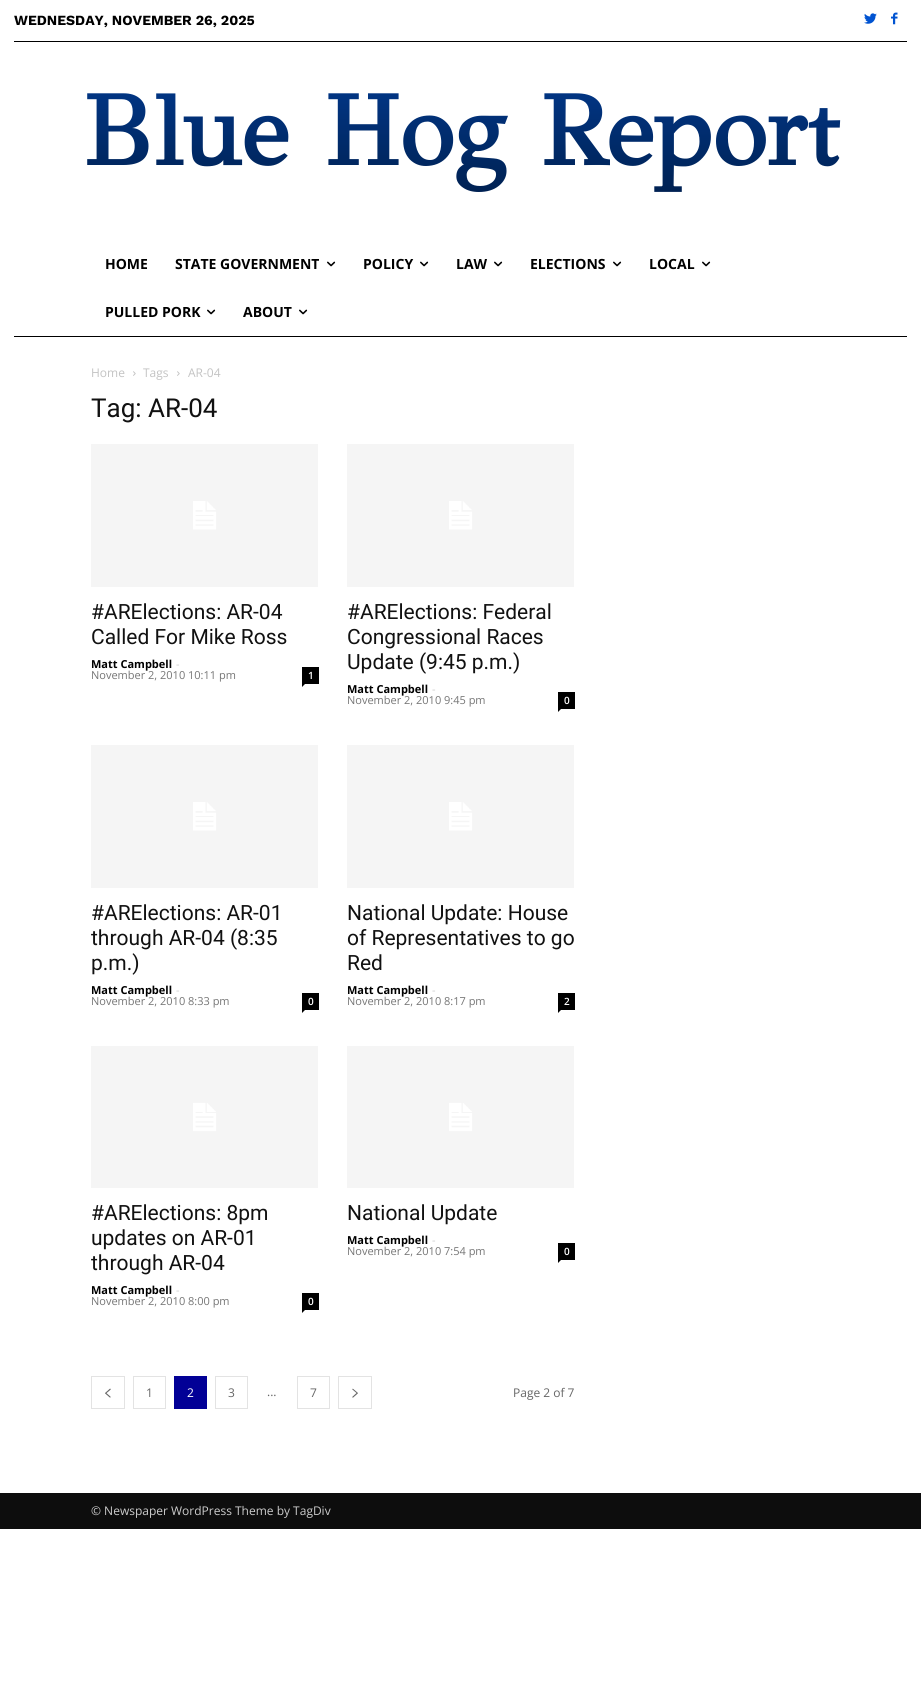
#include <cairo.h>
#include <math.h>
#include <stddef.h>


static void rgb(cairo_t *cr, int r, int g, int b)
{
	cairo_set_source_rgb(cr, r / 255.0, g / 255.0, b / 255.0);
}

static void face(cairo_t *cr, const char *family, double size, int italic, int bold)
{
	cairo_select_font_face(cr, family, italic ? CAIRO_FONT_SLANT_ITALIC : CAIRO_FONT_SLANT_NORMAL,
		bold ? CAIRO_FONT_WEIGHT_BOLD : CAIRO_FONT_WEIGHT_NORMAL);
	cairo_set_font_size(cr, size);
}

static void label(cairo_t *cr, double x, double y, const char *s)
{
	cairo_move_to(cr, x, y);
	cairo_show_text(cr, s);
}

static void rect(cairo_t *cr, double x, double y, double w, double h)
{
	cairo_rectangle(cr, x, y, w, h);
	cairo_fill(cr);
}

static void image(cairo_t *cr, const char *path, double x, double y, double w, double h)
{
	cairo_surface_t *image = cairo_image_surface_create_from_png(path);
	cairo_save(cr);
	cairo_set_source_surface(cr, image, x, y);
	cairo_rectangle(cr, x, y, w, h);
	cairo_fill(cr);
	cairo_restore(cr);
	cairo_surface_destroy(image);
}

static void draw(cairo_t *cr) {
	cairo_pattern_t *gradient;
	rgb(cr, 255, 255, 255);
	cairo_paint(cr);
	face(cr, "Work Sans", 14, 0, 1);
	rgb(cr, 0, 0, 0);
	label(cr, 14, 25, "WEDNESDAY, NOVEMBER 26, 2025");
	image(cr, "image0.png", 864, 13, 13, 11);
	image(cr, "image1.png", 891, 12, 7, 13);
	rect(cr, 14, 41, 893, 1);
	face(cr, "GFS Didot", 100, 0, 1);
	gradient = cairo_pattern_create_linear(460, 212, 460, 52);
	cairo_pattern_add_color_stop_rgba(gradient, 0, 0, 0.114, 0.286, 1);
	cairo_pattern_add_color_stop_rgba(gradient, 1, 0.004, 0.239, 0.588, 1);
	cairo_set_source(cr, gradient);
	cairo_pattern_destroy(gradient);
	label(cr, 82, 165, "Blue Hog Report");
	face(cr, "Open Sans", 14, 0, 1);
	rgb(cr, 0, 0, 0);
	label(cr, 105, 269, "HOME");
	label(cr, 175, 269, "STATE GOVERNMENT");
	image(cr, "image2.png", 327, 261, 9, 6);
	label(cr, 363, 269, "POLICY");
	image(cr, "image2.png", 420, 261, 9, 6);
	label(cr, 456, 269, "LAW");
	image(cr, "image2.png", 494, 261, 9, 6);
	label(cr, 530, 269, "ELECTIONS");
	image(cr, "image2.png", 613, 261, 9, 6);
	label(cr, 649, 269, "LOCAL");
	image(cr, "image2.png", 702, 261, 9, 6);
	label(cr, 105, 317, "PULLED PORK");
	image(cr, "image2.png", 207, 309, 9, 6);
	label(cr, 243, 317, "ABOUT");
	image(cr, "image2.png", 299, 309, 9, 6);
	rect(cr, 14, 336, 893, 1);
	face(cr, "Open Sans", 12, 0, 0);
	rgb(cr, 195, 195, 195);
	label(cr, 91, 377, "Home");
	image(cr, "image3.png", 133, 371, 3, 5);
	label(cr, 143, 377, "Tags");
	image(cr, "image3.png", 177, 371, 3, 5);
	label(cr, 188, 377, "AR-04");
	face(cr, "Roboto", 26, 0, 0);
	rgb(cr, 17, 17, 17);
	label(cr, 91, 417, "Tag: AR-04");
	image(cr, "image4.png", 91, 444, 227, 143);
	face(cr, "Roboto", 21, 0, 0);
	label(cr, 91, 619, "#ARElections: AR-04");
	label(cr, 91, 644, "Called For Mike Ross");
	face(cr, "Open Sans", 11, 0, 1);
	rgb(cr, 0, 0, 0);
	label(cr, 91, 668, "Matt Campbell");
	face(cr, "Open Sans", 11, 0, 0);
	rgb(cr, 204, 204, 204);
	label(cr, 176, 668, "-");
	rgb(cr, 118, 118, 118);
	label(cr, 91, 679, "November 2, 2010 10:11 pm");
	rgb(cr, 0, 0, 0);
	rect(cr, 302, 667, 17, 17);
	face(cr, "Open Sans SemiBold", 10, 0, 0);
	rgb(cr, 255, 255, 255);
	label(cr, 308, 679, "1");
	rgb(cr, 0, 0, 0);
	cairo_new_path(cr);
	cairo_move_to(cr, 302, 684);
	cairo_line_to(cr, 305, 684);
	cairo_line_to(cr, 302, 687);
	cairo_close_path(cr);
	cairo_fill(cr);
	image(cr, "image4.png", 347, 444, 227, 143);
	face(cr, "Roboto", 21, 0, 0);
	rgb(cr, 17, 17, 17);
	label(cr, 347, 619, "#ARElections: Federal");
	label(cr, 347, 644, "Congressional Races");
	label(cr, 347, 669, "Update (9:45 p.m.)");
	face(cr, "Open Sans", 11, 0, 1);
	rgb(cr, 0, 0, 0);
	label(cr, 347, 693, "Matt Campbell");
	face(cr, "Open Sans", 11, 0, 0);
	rgb(cr, 204, 204, 204);
	label(cr, 432, 693, "-");
	rgb(cr, 118, 118, 118);
	label(cr, 347, 704, "November 2, 2010 9:45 pm");
	rgb(cr, 0, 0, 0);
	rect(cr, 558, 692, 17, 17);
	face(cr, "Open Sans SemiBold", 10, 0, 0);
	rgb(cr, 255, 255, 255);
	label(cr, 564, 704, "0");
	rgb(cr, 0, 0, 0);
	cairo_new_path(cr);
	cairo_move_to(cr, 558, 709);
	cairo_line_to(cr, 561, 709);
	cairo_line_to(cr, 558, 712);
	cairo_close_path(cr);
	cairo_fill(cr);
	image(cr, "image4.png", 91, 745, 227, 143);
	face(cr, "Roboto", 21, 0, 0);
	rgb(cr, 17, 17, 17);
	label(cr, 91, 920, "#ARElections: AR-01");
	label(cr, 91, 945, "through AR-04 (8:35");
	label(cr, 91, 970, "p.m.)");
	face(cr, "Open Sans", 11, 0, 1);
	rgb(cr, 0, 0, 0);
	label(cr, 91, 994, "Matt Campbell");
	face(cr, "Open Sans", 11, 0, 0);
	rgb(cr, 204, 204, 204);
	label(cr, 176, 994, "-");
	rgb(cr, 118, 118, 118);
	label(cr, 91, 1005, "November 2, 2010 8:33 pm");
	rgb(cr, 0, 0, 0);
	rect(cr, 302, 993, 17, 17);
	face(cr, "Open Sans SemiBold", 10, 0, 0);
	rgb(cr, 255, 255, 255);
	label(cr, 308, 1005, "0");
	rgb(cr, 0, 0, 0);
	cairo_new_path(cr);
	cairo_move_to(cr, 302, 1010);
	cairo_line_to(cr, 305, 1010);
	cairo_line_to(cr, 302, 1013);
	cairo_close_path(cr);
	cairo_fill(cr);
	image(cr, "image4.png", 347, 745, 227, 143);
	face(cr, "Roboto", 21, 0, 0);
	rgb(cr, 17, 17, 17);
	label(cr, 347, 920, "National Update: House");
	label(cr, 347, 945, "of Representatives to go");
	label(cr, 347, 970, "Red");
	face(cr, "Open Sans", 11, 0, 1);
	rgb(cr, 0, 0, 0);
	label(cr, 347, 994, "Matt Campbell");
	face(cr, "Open Sans", 11, 0, 0);
	rgb(cr, 204, 204, 204);
	label(cr, 432, 994, "-");
	rgb(cr, 118, 118, 118);
	label(cr, 347, 1005, "November 2, 2010 8:17 pm");
	rgb(cr, 0, 0, 0);
	rect(cr, 558, 993, 17, 17);
	face(cr, "Open Sans SemiBold", 10, 0, 0);
	rgb(cr, 255, 255, 255);
	label(cr, 564, 1005, "2");
	rgb(cr, 0, 0, 0);
	cairo_new_path(cr);
	cairo_move_to(cr, 558, 1010);
	cairo_line_to(cr, 561, 1010);
	cairo_line_to(cr, 558, 1013);
	cairo_close_path(cr);
	cairo_fill(cr);
	image(cr, "image5.png", 91, 1046, 227, 142);
	face(cr, "Roboto", 21, 0, 0);
	rgb(cr, 17, 17, 17);
	label(cr, 91, 1220, "#ARElections: 8pm");
	label(cr, 91, 1245, "updates on AR-01");
	label(cr, 91, 1270, "through AR-04");
	face(cr, "Open Sans", 11, 0, 1);
	rgb(cr, 0, 0, 0);
	label(cr, 91, 1294, "Matt Campbell");
	face(cr, "Open Sans", 11, 0, 0);
	rgb(cr, 204, 204, 204);
	label(cr, 176, 1294, "-");
	rgb(cr, 118, 118, 118);
	label(cr, 91, 1305, "November 2, 2010 8:00 pm");
	rgb(cr, 0, 0, 0);
	rect(cr, 302, 1293, 17, 17);
	face(cr, "Open Sans SemiBold", 10, 0, 0);
	rgb(cr, 255, 255, 255);
	label(cr, 308, 1305, "0");
	rgb(cr, 0, 0, 0);
	cairo_new_path(cr);
	cairo_move_to(cr, 302, 1310);
	cairo_line_to(cr, 305, 1310);
	cairo_line_to(cr, 302, 1313);
	cairo_close_path(cr);
	cairo_fill(cr);
	image(cr, "image5.png", 347, 1046, 227, 142);
	face(cr, "Roboto", 21, 0, 0);
	rgb(cr, 17, 17, 17);
	label(cr, 347, 1220, "National Update");
	face(cr, "Open Sans", 11, 0, 1);
	rgb(cr, 0, 0, 0);
	label(cr, 347, 1244, "Matt Campbell");
	face(cr, "Open Sans", 11, 0, 0);
	rgb(cr, 204, 204, 204);
	label(cr, 432, 1244, "-");
	rgb(cr, 118, 118, 118);
	label(cr, 347, 1255, "November 2, 2010 7:54 pm");
	rgb(cr, 0, 0, 0);
	rect(cr, 558, 1243, 17, 17);
	face(cr, "Open Sans SemiBold", 10, 0, 0);
	rgb(cr, 255, 255, 255);
	label(cr, 564, 1255, "0");
	rgb(cr, 0, 0, 0);
	cairo_new_path(cr);
	cairo_move_to(cr, 558, 1260);
	cairo_line_to(cr, 561, 1260);
	cairo_line_to(cr, 558, 1263);
	cairo_close_path(cr);
	cairo_fill(cr);
	cairo_rectangle(cr, 91.5, 1376.5, 33, 32);
	rgb(cr, 227, 227, 227);
	cairo_set_line_width(cr, 1);
	cairo_stroke(cr);
	image(cr, "image6.png", 105, 1388, 6, 10);
	cairo_rectangle(cr, 133.5, 1376.5, 32, 32);
	cairo_stroke(cr);
	face(cr, "Open Sans", 12, 0, 0);
	rgb(cr, 102, 102, 102);
	label(cr, 146, 1397, "1");
	rgb(cr, 2, 0, 150);
	rect(cr, 174, 1376, 33, 33);
	rgb(cr, 255, 255, 255);
	label(cr, 187, 1397, "2");
	cairo_rectangle(cr, 215.5, 1376.5, 32, 32);
	rgb(cr, 227, 227, 227);
	cairo_stroke(cr);
	rgb(cr, 102, 102, 102);
	label(cr, 228, 1397, "3");
	label(cr, 267, 1396, "...");
	cairo_rectangle(cr, 297.5, 1376.5, 32, 32);
	rgb(cr, 227, 227, 227);
	cairo_stroke(cr);
	rgb(cr, 102, 102, 102);
	label(cr, 310, 1397, "7");
	cairo_rectangle(cr, 338.5, 1376.5, 33, 32);
	rgb(cr, 227, 227, 227);
	cairo_stroke(cr);
	image(cr, "image7.png", 352, 1388, 6, 10);
	rgb(cr, 102, 102, 102);
	label(cr, 513, 1397, "Page 2 of 7");
	rgb(cr, 13, 13, 13);
	rect(cr, 0, 1493, 921, 36);
	rgb(cr, 204, 204, 204);
	label(cr, 91, 1515, "© Newspaper WordPress Theme by TagDiv");
}

int main(void) {
	cairo_surface_t *surface = cairo_image_surface_create(CAIRO_FORMAT_RGB24, 921, 1691);
	cairo_t *cr = cairo_create(surface);
	cairo_font_options_t *options = cairo_font_options_create();
	cairo_font_options_set_hint_metrics(options, CAIRO_HINT_METRICS_OFF);
	cairo_font_options_set_hint_style(options, CAIRO_HINT_STYLE_NONE);
	cairo_set_font_options(cr, options);
	cairo_set_miter_limit(cr, 4);
	draw(cr);
	cairo_surface_write_to_png(surface, "render.png");
	cairo_font_options_destroy(options);
	cairo_destroy(cr);
	cairo_surface_destroy(surface);
	return 0;
}
